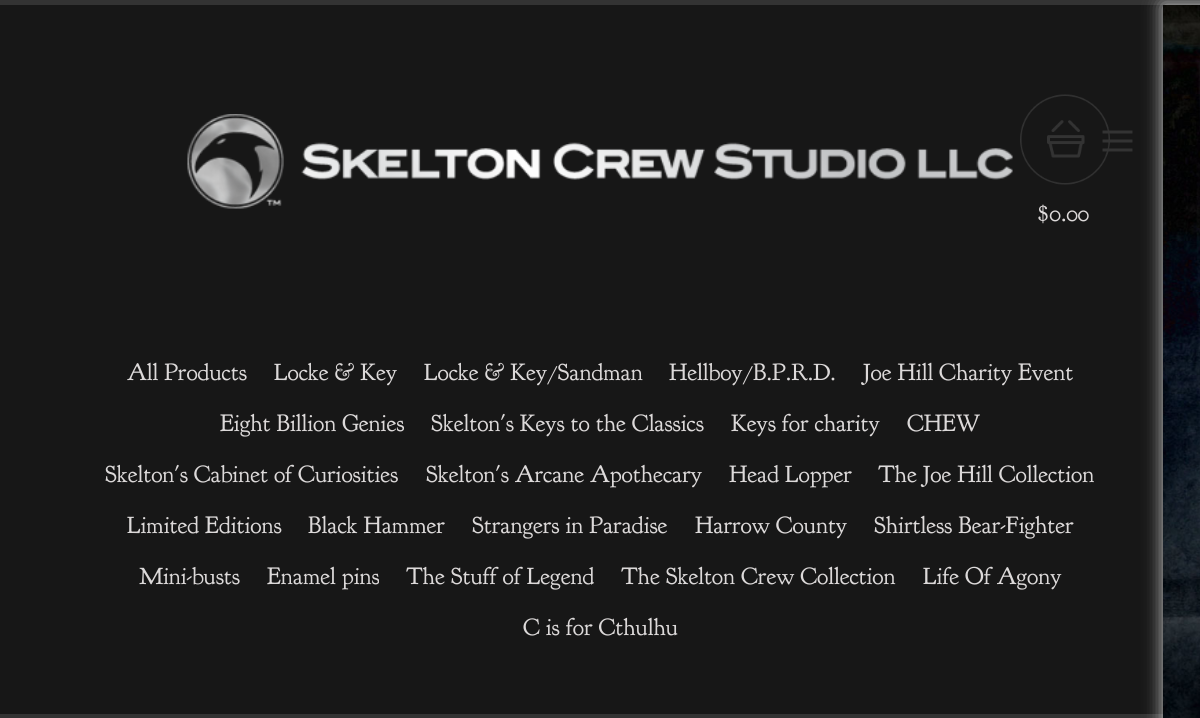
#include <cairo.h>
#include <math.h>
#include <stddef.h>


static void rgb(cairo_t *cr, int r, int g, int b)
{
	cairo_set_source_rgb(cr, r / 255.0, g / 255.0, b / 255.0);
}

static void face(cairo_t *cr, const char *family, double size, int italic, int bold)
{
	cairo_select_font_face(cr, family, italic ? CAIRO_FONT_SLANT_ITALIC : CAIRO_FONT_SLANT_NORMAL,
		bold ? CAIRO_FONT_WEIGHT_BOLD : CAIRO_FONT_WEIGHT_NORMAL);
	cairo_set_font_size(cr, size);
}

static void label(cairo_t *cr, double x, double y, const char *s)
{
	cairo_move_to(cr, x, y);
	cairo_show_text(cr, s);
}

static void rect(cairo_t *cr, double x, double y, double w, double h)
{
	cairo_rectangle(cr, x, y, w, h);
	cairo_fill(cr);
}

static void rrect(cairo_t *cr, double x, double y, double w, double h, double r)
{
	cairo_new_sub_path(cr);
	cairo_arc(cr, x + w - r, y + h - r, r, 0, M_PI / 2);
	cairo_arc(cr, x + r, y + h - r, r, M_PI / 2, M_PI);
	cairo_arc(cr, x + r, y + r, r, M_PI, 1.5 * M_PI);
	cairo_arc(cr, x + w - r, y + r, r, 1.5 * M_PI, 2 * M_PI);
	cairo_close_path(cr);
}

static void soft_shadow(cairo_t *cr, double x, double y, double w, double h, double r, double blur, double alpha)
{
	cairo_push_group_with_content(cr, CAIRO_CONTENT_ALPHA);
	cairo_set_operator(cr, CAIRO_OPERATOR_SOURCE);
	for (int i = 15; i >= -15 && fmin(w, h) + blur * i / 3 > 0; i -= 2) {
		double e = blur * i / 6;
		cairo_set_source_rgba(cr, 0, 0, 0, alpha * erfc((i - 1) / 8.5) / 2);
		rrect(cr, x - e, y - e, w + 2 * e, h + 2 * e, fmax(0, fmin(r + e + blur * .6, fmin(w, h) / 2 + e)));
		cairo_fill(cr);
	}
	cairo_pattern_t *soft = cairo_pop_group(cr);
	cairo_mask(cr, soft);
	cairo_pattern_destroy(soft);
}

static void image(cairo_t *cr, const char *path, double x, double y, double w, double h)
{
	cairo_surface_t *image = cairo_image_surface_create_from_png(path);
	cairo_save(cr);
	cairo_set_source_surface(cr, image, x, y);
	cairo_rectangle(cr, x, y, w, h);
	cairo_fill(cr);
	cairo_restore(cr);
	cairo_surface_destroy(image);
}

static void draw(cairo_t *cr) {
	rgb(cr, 23, 23, 23);
	cairo_paint(cr);
	rgb(cr, 51, 51, 51);
	rect(cr, 0, 0, 1200, 5);
	image(cr, "image0.png", 187, 114, 826, 95);
	image(cr, "image1.png", 1020, 94, 90, 91);
	face(cr, "Goudy Bookletter 1911", 24, 0, 0);
	rgb(cr, 220, 217, 217);
	label(cr, 1038, 221, "$0.00");
	rgb(cr, 51, 51, 51);
	rect(cr, 0, 714, 1163, 4);
	rgb(cr, 204, 204, 204);
	soft_shadow(cr, 1163, 5, 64, 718, 0, 9, 1);
	image(cr, "image2.png", 1163, 5, 37, 713);
	image(cr, "image3.png", 1102, 130, 31, 22);
	rgb(cr, 220, 217, 217);
	label(cr, 127, 380, "All Products");
	label(cr, 274, 380, "Locke & Key");
	label(cr, 424, 380, "Locke & Key/Sandman");
	label(cr, 669, 380, "Hellboy/B.P.R.D.");
	label(cr, 863, 380, "Joe Hill Charity Event");
	label(cr, 220, 431, "Eight Billion Genies");
	label(cr, 431, 431, "Skelton's Keys to the Classics");
	label(cr, 731, 431, "Keys for charity");
	label(cr, 907, 431, "CHEW");
	label(cr, 105, 482, "Skelton's Cabinet of Curiosities");
	label(cr, 426, 482, "Skelton's Arcane Apothecary");
	label(cr, 729, 482, "Head Lopper");
	label(cr, 878, 482, "The Joe Hill Collection");
	label(cr, 127, 533, "Limited Editions");
	label(cr, 308, 533, "Black Hammer");
	label(cr, 472, 533, "Strangers in Paradise");
	label(cr, 695, 533, "Harrow County");
	label(cr, 874, 533, "Shirtless Bear-Fighter");
	label(cr, 139, 584, "Mini-busts");
	label(cr, 267, 584, "Enamel pins");
	label(cr, 406, 584, "The Stuff of Legend");
	label(cr, 621, 584, "The Skelton Crew Collection");
	label(cr, 923, 584, "Life Of Agony");
	label(cr, 523, 635, "C is for Cthulhu");
}

int main(void) {
	cairo_surface_t *surface = cairo_image_surface_create(CAIRO_FORMAT_RGB24, 1200, 718);
	cairo_t *cr = cairo_create(surface);
	cairo_font_options_t *options = cairo_font_options_create();
	cairo_font_options_set_hint_metrics(options, CAIRO_HINT_METRICS_OFF);
	cairo_font_options_set_hint_style(options, CAIRO_HINT_STYLE_NONE);
	cairo_set_font_options(cr, options);
	cairo_set_miter_limit(cr, 4);
	draw(cr);
	cairo_surface_write_to_png(surface, "render.png");
	cairo_font_options_destroy(options);
	cairo_destroy(cr);
	cairo_surface_destroy(surface);
	return 0;
}
